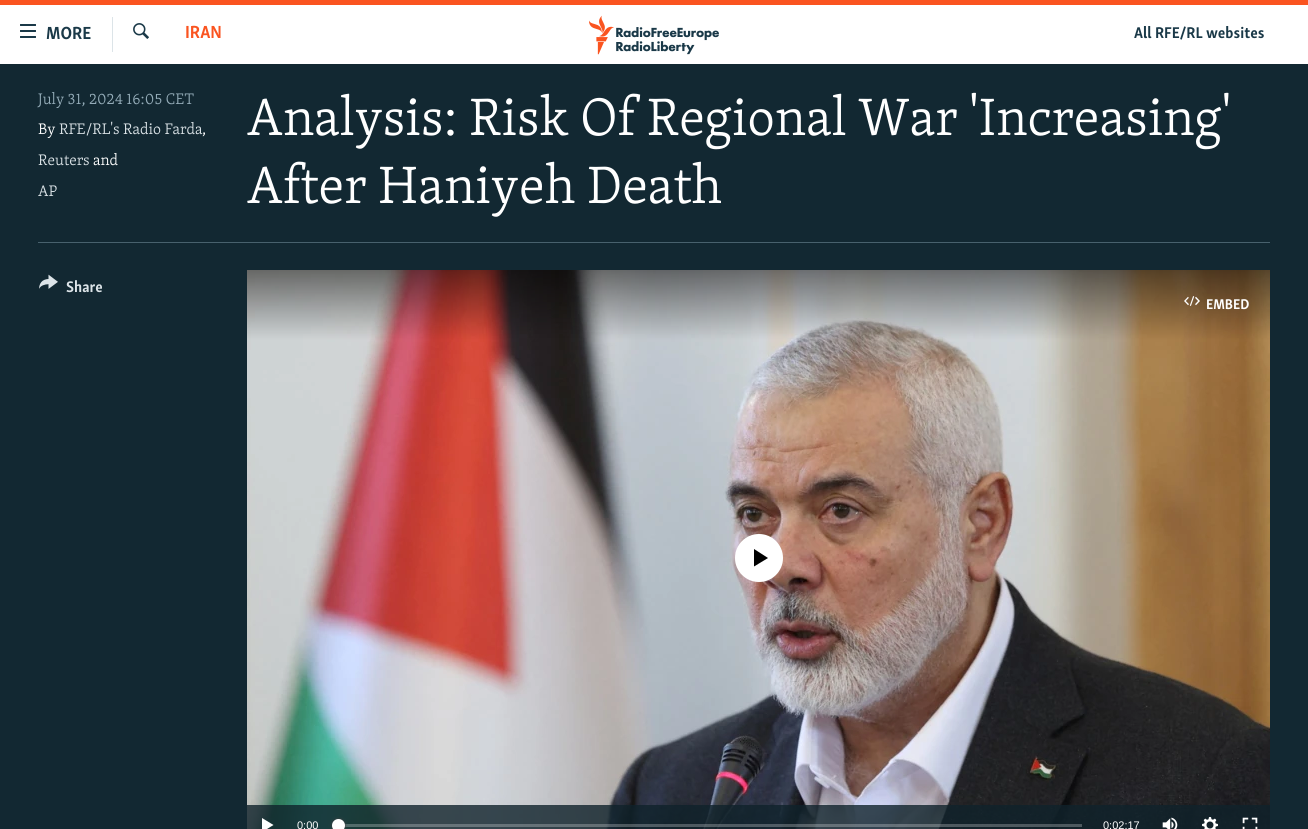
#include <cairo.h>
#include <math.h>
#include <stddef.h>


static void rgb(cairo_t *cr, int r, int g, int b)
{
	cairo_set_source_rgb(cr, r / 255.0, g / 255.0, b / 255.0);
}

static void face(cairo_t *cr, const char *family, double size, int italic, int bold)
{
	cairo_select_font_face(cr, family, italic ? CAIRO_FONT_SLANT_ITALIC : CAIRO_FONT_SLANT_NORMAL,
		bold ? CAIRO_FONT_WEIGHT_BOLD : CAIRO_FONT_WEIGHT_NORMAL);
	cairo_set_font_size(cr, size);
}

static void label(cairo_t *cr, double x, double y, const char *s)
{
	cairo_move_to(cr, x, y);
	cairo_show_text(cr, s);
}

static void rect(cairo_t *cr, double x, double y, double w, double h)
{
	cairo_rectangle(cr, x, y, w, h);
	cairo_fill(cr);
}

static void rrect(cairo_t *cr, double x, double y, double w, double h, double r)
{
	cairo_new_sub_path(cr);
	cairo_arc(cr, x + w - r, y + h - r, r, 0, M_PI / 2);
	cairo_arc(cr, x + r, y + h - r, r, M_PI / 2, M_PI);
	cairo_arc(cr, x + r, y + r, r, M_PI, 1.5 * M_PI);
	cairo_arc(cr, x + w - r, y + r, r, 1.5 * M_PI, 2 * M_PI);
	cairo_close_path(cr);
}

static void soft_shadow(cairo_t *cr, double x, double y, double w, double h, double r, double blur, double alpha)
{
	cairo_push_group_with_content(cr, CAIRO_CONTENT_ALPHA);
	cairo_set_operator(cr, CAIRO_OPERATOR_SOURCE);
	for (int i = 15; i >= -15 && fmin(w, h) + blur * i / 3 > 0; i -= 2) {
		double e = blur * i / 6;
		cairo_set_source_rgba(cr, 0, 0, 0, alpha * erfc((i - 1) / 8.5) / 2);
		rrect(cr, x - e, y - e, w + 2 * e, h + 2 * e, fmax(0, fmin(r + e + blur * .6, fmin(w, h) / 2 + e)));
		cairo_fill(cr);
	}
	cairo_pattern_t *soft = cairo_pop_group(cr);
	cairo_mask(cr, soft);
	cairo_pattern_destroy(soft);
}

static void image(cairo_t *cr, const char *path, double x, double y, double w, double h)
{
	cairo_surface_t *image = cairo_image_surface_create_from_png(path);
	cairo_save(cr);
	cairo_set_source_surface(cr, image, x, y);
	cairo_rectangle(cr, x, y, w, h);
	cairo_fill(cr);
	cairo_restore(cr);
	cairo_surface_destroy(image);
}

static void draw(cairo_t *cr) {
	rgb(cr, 255, 255, 255);
	cairo_paint(cr);
	rgb(cr, 250, 84, 32);
	rect(cr, 0, 0, 1308, 5);
	image(cr, "image0.png", 20, 24, 16, 14);
	face(cr, "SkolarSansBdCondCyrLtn", 18, 0, 1);
	rgb(cr, 26, 57, 72);
	label(cr, 46, 39, "MORE");
	rgb(cr, 220, 228, 232);
	rect(cr, 112, 17, 1, 35);
	image(cr, "image1.png", 133, 23, 16, 16);
	rgb(cr, 250, 84, 32);
	label(cr, 185, 38, "IRAN");
	image(cr, "image2.png", 589, 15, 130, 40);
	face(cr, "SkolarSansBdCondCyrLtn", 16, 0, 1);
	rgb(cr, 26, 57, 72);
	label(cr, 1134, 38, "All RFE/RL websites");
	rgb(cr, 18, 40, 50);
	rect(cr, 0, 64, 1308, 765);
	face(cr, "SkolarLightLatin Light", 15.75, 0, 0);
	rgb(cr, 149, 173, 185);
	label(cr, 38, 104, "July 31, 2024 16:05 CET");
	rgb(cr, 255, 255, 255);
	label(cr, 38, 134, "By");
	rgb(cr, 220, 228, 232);
	label(cr, 59, 134, "RFE/RL's Radio Farda");
	rgb(cr, 255, 255, 255);
	label(cr, 202, 134, ",");
	rgb(cr, 220, 228, 232);
	label(cr, 38, 165, "Reuters");
	rgb(cr, 255, 255, 255);
	label(cr, 93, 165, "and");
	rgb(cr, 220, 228, 232);
	label(cr, 38, 196, "AP");
	face(cr, "SkolarLightLatin Light", 54, 0, 0);
	rgb(cr, 255, 255, 255);
	label(cr, 247, 135, "Analysis: Risk Of Regional War 'Increasing'");
	label(cr, 247, 203, "After Haniyeh Death");
	rgb(cr, 72, 97, 109);
	rect(cr, 38, 242, 1232, 1);
	image(cr, "image3.png", 39, 274, 19, 15);
	face(cr, "SkolarSansBdCondCyrLtn", 15.75, 0, 1);
	rgb(cr, 220, 228, 232);
	label(cr, 66, 292, "Share");
	image(cr, "image4.png", 247, 270, 1023, 559);
	image(cr, "image5.png", 1184, 296, 16, 10);
	face(cr, "SkolarSansBdCondCyrLtn", 14.5, 0, 1);
	rgb(cr, 255, 255, 255);
	label(cr, 1206, 309, "EMBED");
	cairo_new_path(cr);
	cairo_arc(cr, 759, 558, 24, 0, 2 * M_PI);
	cairo_fill(cr);
	rgb(cr, 0, 0, 0);
	cairo_new_path(cr);
	cairo_move_to(cr, 754, 566.5);
	cairo_line_to(cr, 768, 558);
	cairo_line_to(cr, 754, 549);
	cairo_close_path(cr);
	cairo_fill(cr);
	cairo_set_source_rgba(cr, 0.063, 0.133, 0.169, 0.8);
	rect(cr, 247, 805, 1023, 24);
	rgb(cr, 255, 255, 255);
	cairo_new_path(cr);
	cairo_move_to(cr, 262, 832);
	cairo_line_to(cr, 273.5, 825);
	cairo_line_to(cr, 262, 818);
	cairo_close_path(cr);
	cairo_fill(cr);
	face(cr, "Liberation Sans", 11, 0, 0);
	label(cr, 297, 829, "0:00");
	cairo_set_source_rgba(cr, 1, 1, 1, 0.25);
	rect(cr, 338, 824, 744, 3);
	rgb(cr, 65, 65, 68);
	soft_shadow(cr, 332, 819, 13, 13, 6.5, 1.5, 1);
	rgb(cr, 255, 255, 255);
	cairo_arc(cr, 338.5, 825.5, 6.5, 0, 2 * M_PI);
	cairo_fill(cr);
	label(cr, 1103, 829, "0:02:17");
	image(cr, "image6.png", 1162, 817, 16, 12);
	image(cr, "image7.png", 1202, 817, 16, 12);
	image(cr, "image8.png", 1242, 817, 16, 12);
}

int main(void) {
	cairo_surface_t *surface = cairo_image_surface_create(CAIRO_FORMAT_RGB24, 1308, 829);
	cairo_t *cr = cairo_create(surface);
	cairo_font_options_t *options = cairo_font_options_create();
	cairo_font_options_set_hint_metrics(options, CAIRO_HINT_METRICS_OFF);
	cairo_font_options_set_hint_style(options, CAIRO_HINT_STYLE_NONE);
	cairo_set_font_options(cr, options);
	cairo_set_miter_limit(cr, 4);
	draw(cr);
	cairo_surface_write_to_png(surface, "render.png");
	cairo_font_options_destroy(options);
	cairo_destroy(cr);
	cairo_surface_destroy(surface);
	return 0;
}
